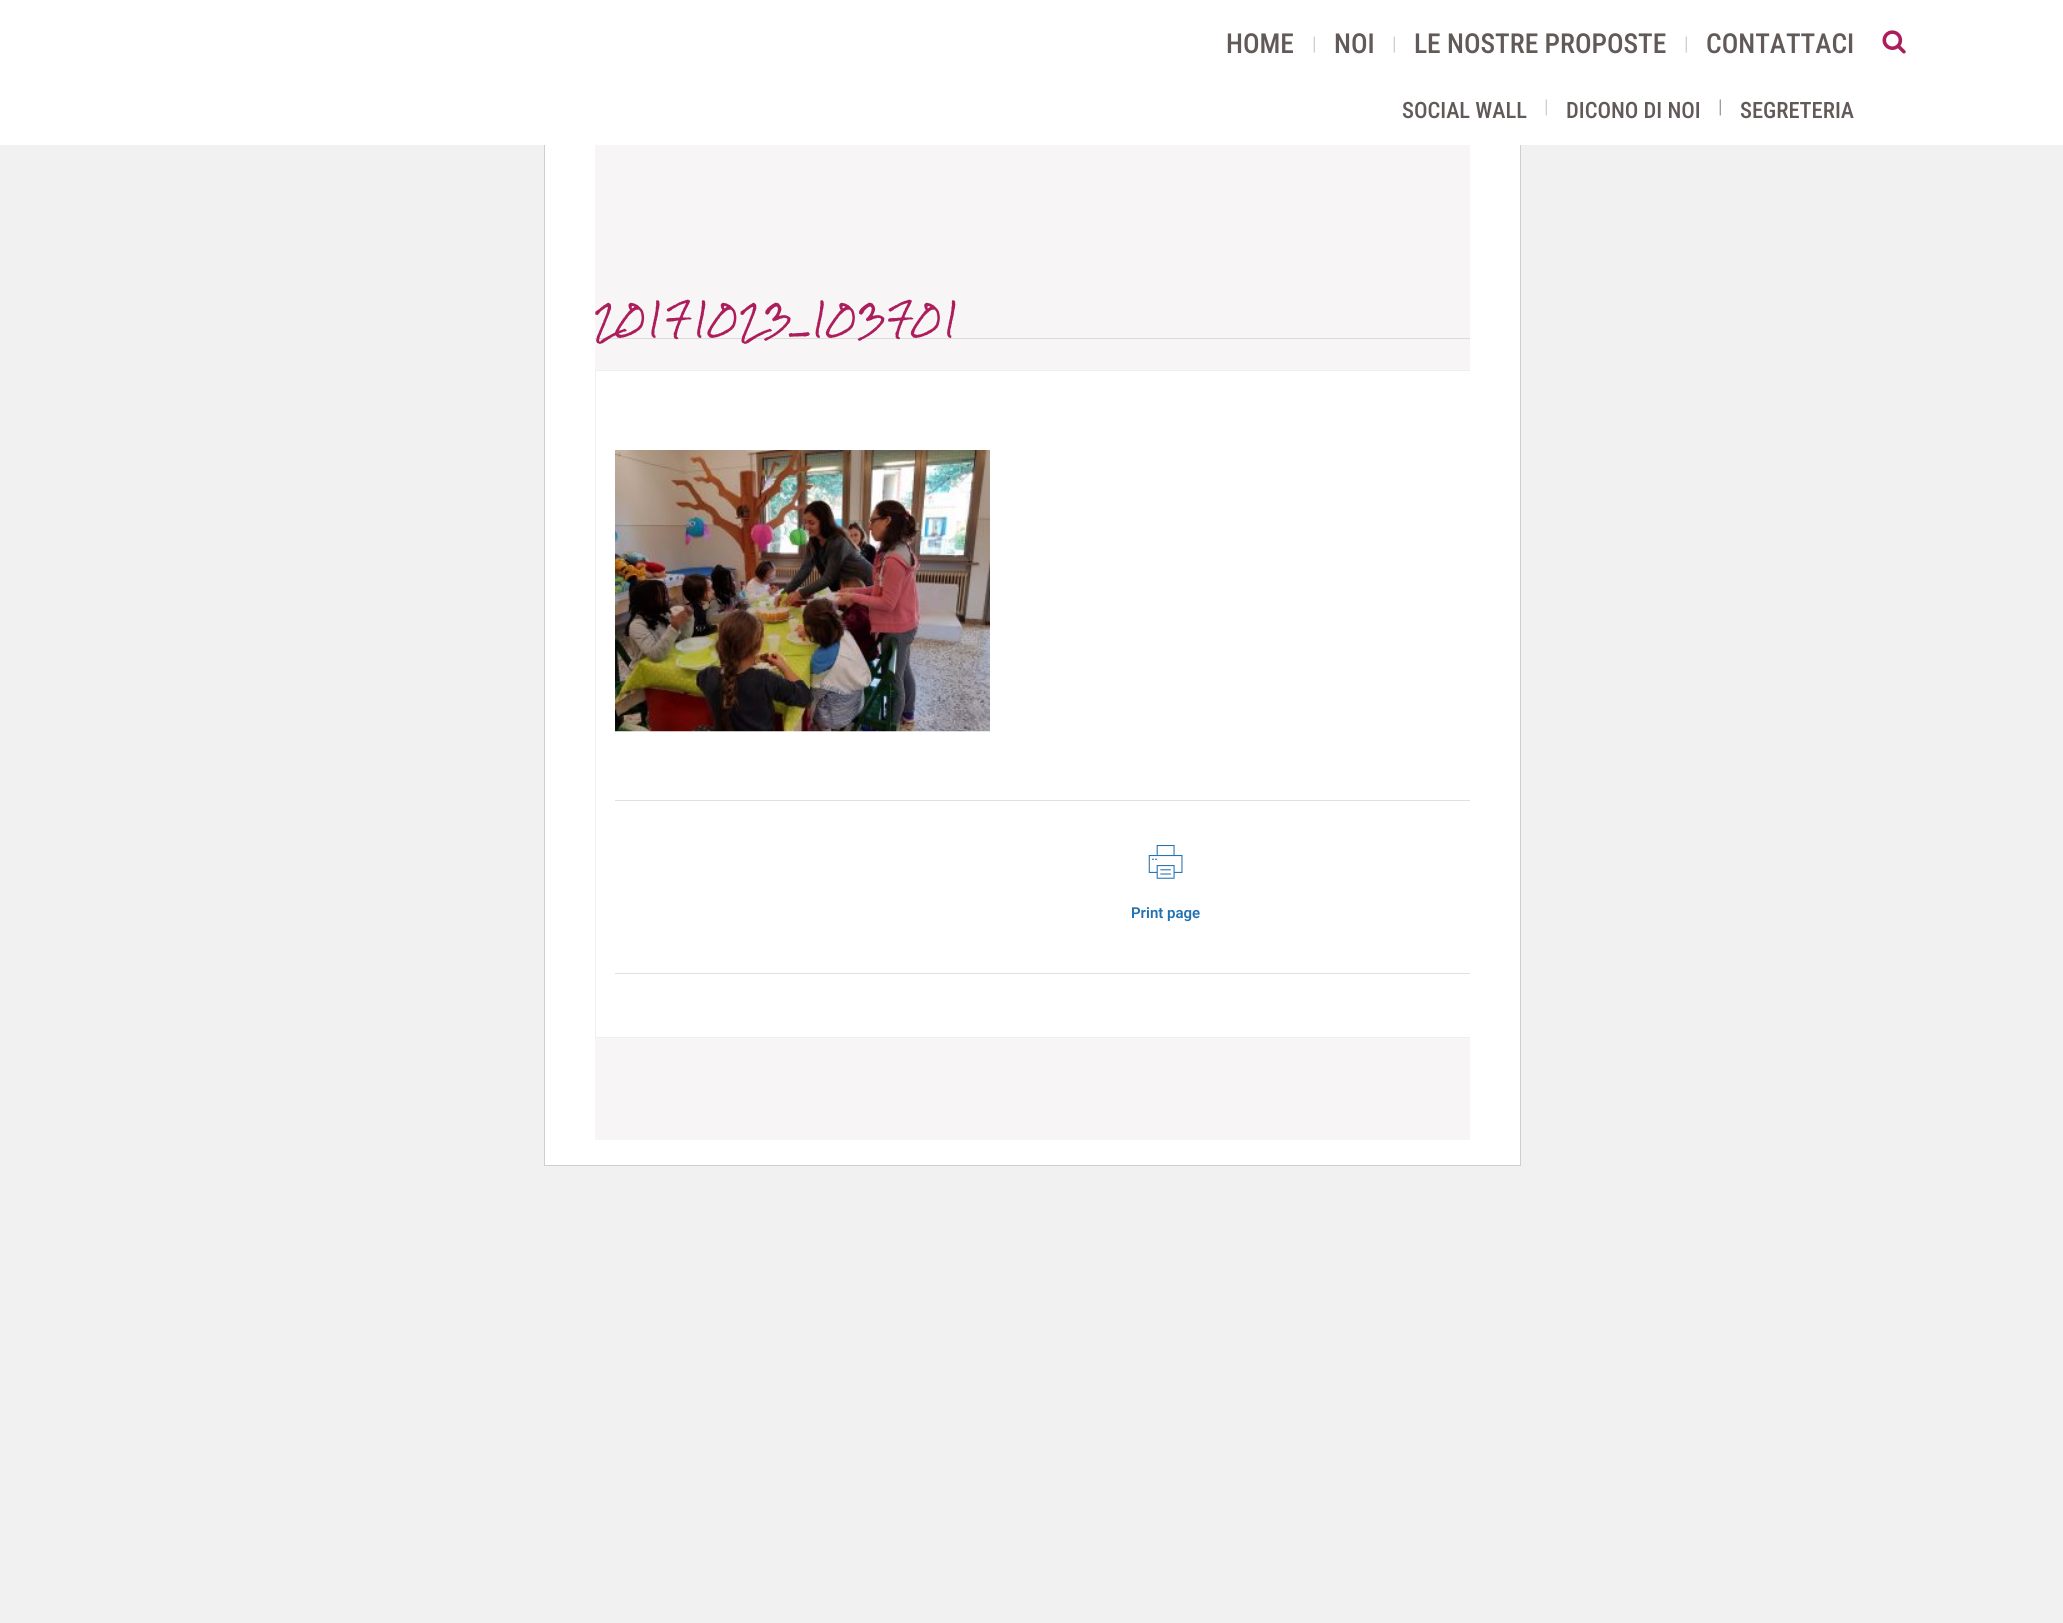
#include <cairo.h>
#include <math.h>
#include <stddef.h>


static void rgb(cairo_t *cr, int r, int g, int b)
{
	cairo_set_source_rgb(cr, r / 255.0, g / 255.0, b / 255.0);
}

static void face(cairo_t *cr, const char *family, double size, int italic, int bold)
{
	cairo_select_font_face(cr, family, italic ? CAIRO_FONT_SLANT_ITALIC : CAIRO_FONT_SLANT_NORMAL,
		bold ? CAIRO_FONT_WEIGHT_BOLD : CAIRO_FONT_WEIGHT_NORMAL);
	cairo_set_font_size(cr, size);
}

static void label(cairo_t *cr, double x, double y, const char *s)
{
	cairo_move_to(cr, x, y);
	cairo_show_text(cr, s);
}

static void tracked(cairo_t *cr, double x, double y, const char *s, double letter, double word)
{
	cairo_move_to(cr, x, y);
	while (*s) {
		char ch[5] = {0};
		int n = 0;
		do ch[n++] = *s++; while ((*s & 0xC0) == 0x80);
		cairo_show_text(cr, ch);
		cairo_rel_move_to(cr, letter + word * (*ch == ' '), 0);
	}
}

static void rect(cairo_t *cr, double x, double y, double w, double h)
{
	cairo_rectangle(cr, x, y, w, h);
	cairo_fill(cr);
}

static void image(cairo_t *cr, const char *path, double x, double y, double w, double h)
{
	cairo_surface_t *image = cairo_image_surface_create_from_png(path);
	cairo_save(cr);
	cairo_set_source_surface(cr, image, x, y);
	cairo_rectangle(cr, x, y, w, h);
	cairo_fill(cr);
	cairo_restore(cr);
	cairo_surface_destroy(image);
}

static void draw(cairo_t *cr) {
	rgb(cr, 241, 241, 241);
	cairo_paint(cr);
	rgb(cr, 255, 255, 255);
	rect(cr, 545, 145, 975, 1020);
	cairo_rectangle(cr, 544.5, 63.5, 976, 1102);
	rgb(cr, 204, 208, 212);
	cairo_set_line_width(cr, 1);
	cairo_stroke(cr);
	rgb(cr, 247, 245, 245);
	rect(cr, 595, 145, 875, 995);
	rgb(cr, 255, 255, 255);
	rect(cr, 0, 0, 2063, 145);
	face(cr, "Roboto Condensed Medium", 27.5, 0, 0);
	rgb(cr, 98, 90, 88);
	label(cr, 1226, 53, "HOME");
	face(cr, "Roboto Condensed", 19, 0, 0);
	rgb(cr, 213, 206, 204);
	label(cr, 1312, 50, "|");
	face(cr, "Roboto Condensed Medium", 27.5, 0, 0);
	rgb(cr, 98, 90, 88);
	label(cr, 1334, 53, "NOI");
	face(cr, "Roboto Condensed", 19, 0, 0);
	rgb(cr, 213, 206, 204);
	label(cr, 1392, 50, "|");
	face(cr, "Roboto Condensed Medium", 27.5, 0, 0);
	rgb(cr, 98, 90, 88);
	label(cr, 1414, 53, "LE NOSTRE PROPOSTE");
	face(cr, "Roboto Condensed", 19, 0, 0);
	rgb(cr, 213, 206, 204);
	label(cr, 1684, 50, "|");
	face(cr, "Roboto Condensed Medium", 27.5, 0, 0);
	rgb(cr, 98, 90, 88);
	label(cr, 1706, 53, "CONTATTACI");
	face(cr, "Roboto Condensed Medium", 22.5, 0, 0);
	label(cr, 1402, 118, "SOCIAL WALL");
	face(cr, "Roboto Condensed", 19, 0, 0);
	rgb(cr, 213, 206, 204);
	label(cr, 1544, 113, "|");
	face(cr, "Roboto Condensed Medium", 22.5, 0, 0);
	rgb(cr, 98, 90, 88);
	label(cr, 1566, 118, "DICONO DI NOI");
	face(cr, "Roboto Condensed", 19, 0, 0);
	rgb(cr, 158, 158, 158);
	label(cr, 1718, 113, "|");
	face(cr, "Roboto Condensed Medium", 22.5, 0, 0);
	rgb(cr, 98, 90, 88);
	label(cr, 1740, 118, "SEGRETERIA");
	image(cr, "image0.png", 1882, 30, 24, 24);
	rgb(cr, 218, 218, 218);
	rect(cr, 595, 338, 875, 1);
	face(cr, "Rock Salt", 31.25, 0, 0);
	rgb(cr, 171, 30, 91);
	tracked(cr, 594, 331, "20171023_103701", 1.25, 0);
	rgb(cr, 255, 255, 255);
	rect(cr, 596, 371, 874, 666);
	cairo_save(cr);
	cairo_rectangle(cr, 595, 89, 875, 1051);
	cairo_clip(cr);
	cairo_rectangle(cr, 595.5, 370.5, 1140, 667);
	rgb(cr, 240, 238, 238);
	cairo_stroke(cr);
	cairo_restore(cr);
	image(cr, "image1.png", 615, 450, 375, 282);
	rgb(cr, 224, 224, 224);
	rect(cr, 615, 800, 855, 1);
	rect(cr, 615, 973, 855, 1);
	image(cr, "image2.png", 1148, 845, 35, 34);
	face(cr, "Roboto SemiBold", 15, 0, 0);
	rgb(cr, 34, 113, 177);
	label(cr, 1131, 918, "Print page");
}

int main(void) {
	cairo_surface_t *surface = cairo_image_surface_create(CAIRO_FORMAT_RGB24, 2063, 1623);
	cairo_t *cr = cairo_create(surface);
	cairo_font_options_t *options = cairo_font_options_create();
	cairo_font_options_set_hint_metrics(options, CAIRO_HINT_METRICS_OFF);
	cairo_font_options_set_hint_style(options, CAIRO_HINT_STYLE_NONE);
	cairo_set_font_options(cr, options);
	cairo_set_miter_limit(cr, 4);
	draw(cr);
	cairo_surface_write_to_png(surface, "render.png");
	cairo_font_options_destroy(options);
	cairo_destroy(cr);
	cairo_surface_destroy(surface);
	return 0;
}
